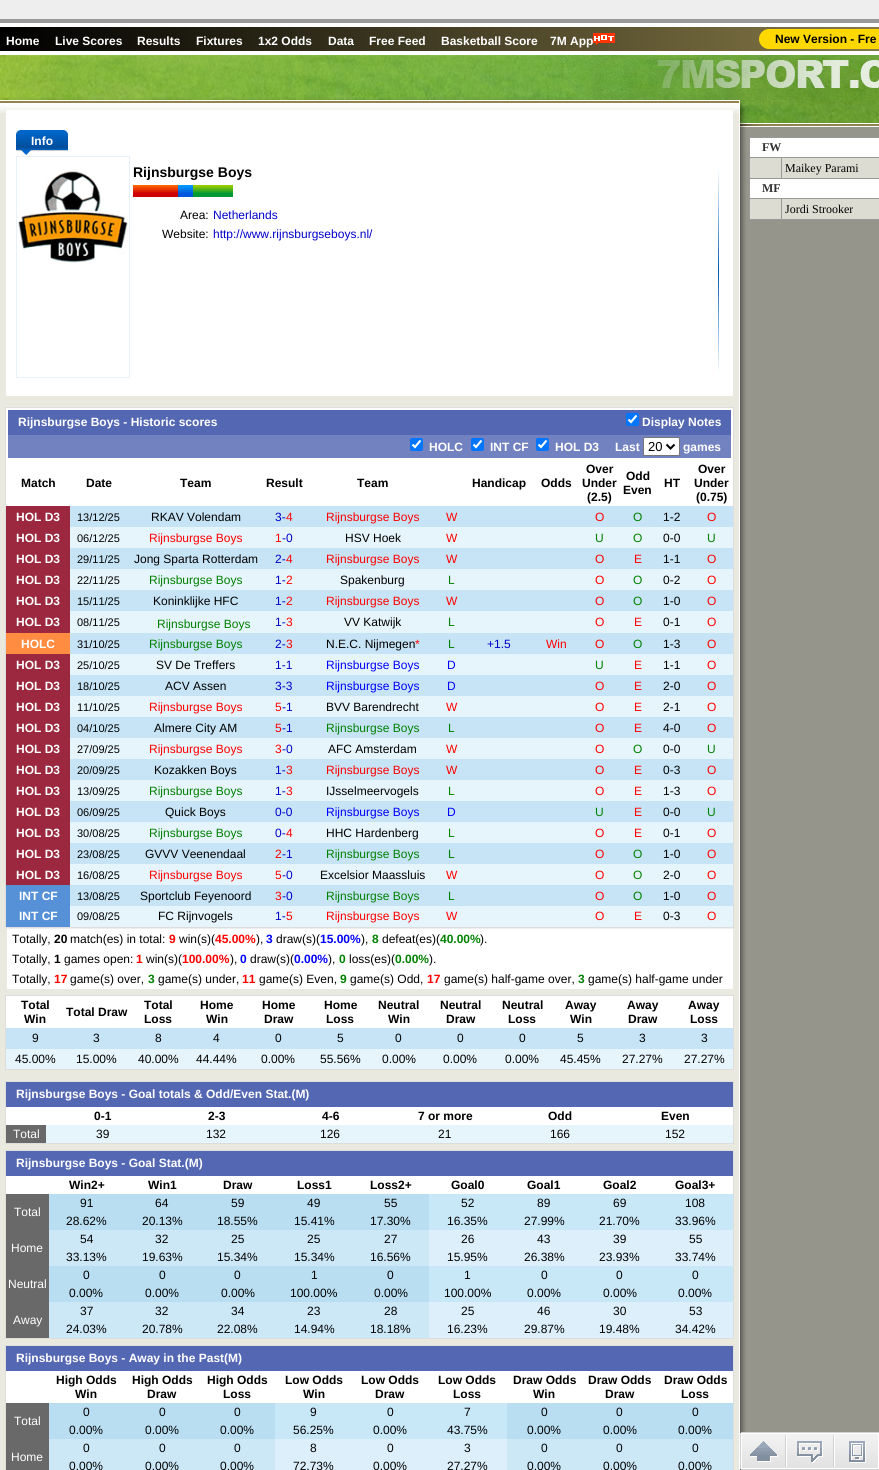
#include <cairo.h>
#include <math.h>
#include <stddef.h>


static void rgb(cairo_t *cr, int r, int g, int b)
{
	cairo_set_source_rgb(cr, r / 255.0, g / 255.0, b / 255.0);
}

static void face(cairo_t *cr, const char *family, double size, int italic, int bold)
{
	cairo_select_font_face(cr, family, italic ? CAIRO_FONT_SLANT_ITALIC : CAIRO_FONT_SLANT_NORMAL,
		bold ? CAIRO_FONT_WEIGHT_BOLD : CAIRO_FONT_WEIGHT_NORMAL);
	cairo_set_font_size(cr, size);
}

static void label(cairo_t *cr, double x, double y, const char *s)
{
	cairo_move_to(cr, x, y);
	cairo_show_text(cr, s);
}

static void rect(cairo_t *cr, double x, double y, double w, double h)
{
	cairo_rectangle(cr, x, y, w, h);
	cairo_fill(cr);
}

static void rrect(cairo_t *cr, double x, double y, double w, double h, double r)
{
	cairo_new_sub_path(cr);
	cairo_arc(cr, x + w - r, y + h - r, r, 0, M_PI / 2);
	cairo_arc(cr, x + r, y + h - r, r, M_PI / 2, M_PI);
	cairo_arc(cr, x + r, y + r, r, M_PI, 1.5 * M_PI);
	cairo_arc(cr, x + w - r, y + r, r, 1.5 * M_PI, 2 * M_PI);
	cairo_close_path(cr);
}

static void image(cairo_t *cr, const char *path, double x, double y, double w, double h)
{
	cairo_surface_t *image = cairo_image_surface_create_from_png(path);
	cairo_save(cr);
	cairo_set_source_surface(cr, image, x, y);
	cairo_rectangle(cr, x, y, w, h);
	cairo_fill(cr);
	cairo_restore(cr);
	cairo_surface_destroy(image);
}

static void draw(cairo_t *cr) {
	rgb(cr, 238, 238, 238);
	cairo_paint(cr);
	rgb(cr, 153, 153, 153);
	rect(cr, 0, 19, 879, 4);
	rgb(cr, 255, 255, 255);
	rect(cr, 0, 23, 879, 4);
	image(cr, "image0.png", 0, 27, 879, 24);
	face(cr, "Liberation Sans", 12, 0, 1);
	label(cr, 6, 45, "Home");
	label(cr, 55, 45, "Live Scores");
	label(cr, 137, 45, "Results");
	label(cr, 196, 45, "Fixtures");
	label(cr, 258, 45, "1x2 Odds");
	label(cr, 328, 45, "Data");
	label(cr, 369, 45, "Free Feed");
	label(cr, 441, 45, "Basketball Score");
	label(cr, 550, 45, "7M App");
	image(cr, "image1.png", 593, 33, 22, 12);
	rgb(cr, 255, 216, 0);
	rrect(cr, 759, 29, 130, 20, 10);
	cairo_fill(cr);
	rgb(cr, 0, 0, 0);
	label(cr, 775, 43, "New Version - Fre");
	rgb(cr, 255, 255, 255);
	rect(cr, 0, 51, 879, 4);
	rgb(cr, 233, 233, 223);
	rect(cr, 0, 113, 739, 1357);
	image(cr, "image2.png", 0, 55, 740, 45);
	image(cr, "image3.png", 0, 100, 739, 13);
	rgb(cr, 255, 255, 255);
	rect(cr, 6, 110, 727, 286);
	image(cr, "image4.png", 16, 130, 52, 25);
	image(cr, "image5.png", 64, 130, 4, 8);
	label(cr, 31, 145, "Info");
	cairo_rectangle(cr, 16.5, 156.5, 113, 221);
	rgb(cr, 233, 241, 248);
	cairo_set_line_width(cr, 1);
	cairo_stroke(cr);
	image(cr, "image6.png", 17, 168, 112, 95);
	face(cr, "Liberation Sans", 14, 0, 1);
	rgb(cr, 0, 0, 0);
	label(cr, 133, 177, "Rijnsburgse Boys");
	rgb(cr, 204, 0, 0);
	rect(cr, 133, 193, 45, 4);
	image(cr, "image7.png", 133, 185, 45, 8);
	rgb(cr, 0, 87, 219);
	rect(cr, 178, 193, 15, 4);
	image(cr, "image8.png", 178, 185, 15, 8);
	rgb(cr, 0, 153, 51);
	rect(cr, 193, 193, 40, 4);
	image(cr, "image9.png", 193, 185, 40, 8);
	face(cr, "Liberation Sans", 12, 0, 0);
	rgb(cr, 0, 0, 0);
	label(cr, 180, 219, "Area:");
	rgb(cr, 0, 0, 204);
	label(cr, 213, 219, "Netherlands");
	rgb(cr, 0, 0, 0);
	label(cr, 162, 238, "Website:");
	rgb(cr, 0, 0, 204);
	label(cr, 213, 238, "http://www.rijnsburgseboys.nl/");
	image(cr, "image10.png", 718, 169, 1, 205);
	rgb(cr, 255, 255, 255);
	rect(cr, 6, 408, 727, 98);
	rgb(cr, 221, 221, 221);
	rect(cr, 5, 407, 729, 1);
	rect(cr, 733, 407, 1, 521);
	rect(cr, 5, 927, 729, 1);
	rect(cr, 5, 407, 1, 521);
	rgb(cr, 84, 103, 179);
	rect(cr, 8, 410, 723, 25);
	face(cr, "Liberation Sans", 12, 0, 1);
	rgb(cr, 255, 255, 255);
	label(cr, 18, 426, "Rijnsburgse Boys - Historic scores");
	rgb(cr, 0, 117, 255);
	rrect(cr, 626, 413, 13, 13, 2);
	cairo_fill(cr);
	cairo_new_path(cr);
	cairo_move_to(cr, 628.5, 419.5);
	cairo_line_to(cr, 631, 422);
	cairo_line_to(cr, 636.5, 415.5);
	rgb(cr, 255, 255, 255);
	cairo_set_line_width(cr, 2.1);
	cairo_stroke(cr);
	label(cr, 642, 426, "Display Notes");
	rgb(cr, 114, 130, 192);
	rect(cr, 8, 435, 723, 23);
	rgb(cr, 0, 117, 255);
	rrect(cr, 410, 438, 13, 13, 2);
	cairo_fill(cr);
	cairo_new_path(cr);
	cairo_move_to(cr, 412.5, 444.5);
	cairo_line_to(cr, 415, 447);
	cairo_line_to(cr, 420.5, 440.5);
	rgb(cr, 255, 255, 255);
	cairo_stroke(cr);
	label(cr, 429, 451, "HOLC");
	rgb(cr, 0, 117, 255);
	rrect(cr, 471, 438, 13, 13, 2);
	cairo_fill(cr);
	cairo_new_path(cr);
	cairo_move_to(cr, 473.5, 444.5);
	cairo_line_to(cr, 476, 447);
	cairo_line_to(cr, 481.5, 440.5);
	rgb(cr, 255, 255, 255);
	cairo_stroke(cr);
	label(cr, 490, 451, "INT CF");
	rgb(cr, 0, 117, 255);
	rrect(cr, 536, 438, 13, 13, 2);
	cairo_fill(cr);
	cairo_new_path(cr);
	cairo_move_to(cr, 538.5, 444.5);
	cairo_line_to(cr, 541, 447);
	cairo_line_to(cr, 546.5, 440.5);
	rgb(cr, 255, 255, 255);
	cairo_stroke(cr);
	label(cr, 555, 451, "HOL D3");
	label(cr, 615, 451, "Last");
	rrect(cr, 643.5, 437.5, 36, 18, 1.5);
	cairo_fill_preserve(cr);
	rgb(cr, 118, 118, 118);
	cairo_set_line_width(cr, 1);
	cairo_stroke(cr);
	cairo_new_path(cr);
	cairo_move_to(cr, 666.5, 444.5);
	cairo_line_to(cr, 670.5, 448.5);
	cairo_line_to(cr, 674.5, 444.5);
	rgb(cr, 0, 0, 0);
	cairo_set_line_width(cr, 2);
	cairo_stroke(cr);
	face(cr, "Liberation Sans", 13, 0, 0);
	label(cr, 648, 451, "20");
	face(cr, "Liberation Sans", 12, 0, 1);
	rgb(cr, 255, 255, 255);
	label(cr, 683, 451, "games");
	rgb(cr, 0, 0, 0);
	label(cr, 21, 487, "Match");
	label(cr, 86, 487, "Date");
	label(cr, 180, 487, "Team");
	label(cr, 266, 487, "Result");
	label(cr, 357, 487, "Team");
	label(cr, 472, 487, "Handicap");
	label(cr, 541, 487, "Odds");
	label(cr, 586, 473, "Over");
	label(cr, 582, 487, "Under");
	label(cr, 587, 501, "(2.5)");
	label(cr, 626, 480, "Odd");
	label(cr, 623, 494, "Even");
	label(cr, 664, 487, "HT");
	label(cr, 698, 473, "Over");
	label(cr, 694, 487, "Under");
	label(cr, 696, 501, "(0.75)");
	rgb(cr, 198, 228, 245);
	rect(cr, 70, 506, 663, 21);
	rgb(cr, 155, 40, 62);
	rect(cr, 6, 506, 64, 127);
	rgb(cr, 255, 255, 255);
	label(cr, 16, 521, "HOL D3");
	face(cr, "Liberation Sans", 11, 0, 0);
	rgb(cr, 0, 0, 0);
	label(cr, 77, 521, "13/12/25");
	face(cr, "Liberation Sans", 12, 0, 0);
	label(cr, 151, 521, "RKAV Volendam");
	rgb(cr, 0, 0, 204);
	label(cr, 275, 521, "3-");
	rgb(cr, 255, 0, 0);
	label(cr, 286, 521, "4");
	label(cr, 326, 521, "Rijnsburgse Boys");
	label(cr, 446, 521, "W");
	label(cr, 595, 521, "O");
	rgb(cr, 0, 128, 0);
	label(cr, 633, 521, "O");
	rgb(cr, 0, 0, 0);
	label(cr, 663, 521, "1-2");
	rgb(cr, 255, 0, 0);
	label(cr, 707, 521, "O");
	rgb(cr, 230, 244, 251);
	rect(cr, 70, 527, 663, 21);
	face(cr, "Liberation Sans", 12, 0, 1);
	rgb(cr, 255, 255, 255);
	label(cr, 16, 542, "HOL D3");
	face(cr, "Liberation Sans", 11, 0, 0);
	rgb(cr, 0, 0, 0);
	label(cr, 77, 542, "06/12/25");
	face(cr, "Liberation Sans", 12, 0, 0);
	rgb(cr, 255, 0, 0);
	label(cr, 149, 542, "Rijnsburgse Boys");
	label(cr, 275, 542, "1");
	rgb(cr, 0, 0, 204);
	label(cr, 282, 542, "-0");
	rgb(cr, 0, 0, 0);
	label(cr, 345, 542, "HSV Hoek");
	rgb(cr, 255, 0, 0);
	label(cr, 446, 542, "W");
	rgb(cr, 0, 128, 0);
	label(cr, 595, 542, "U");
	label(cr, 633, 542, "O");
	rgb(cr, 0, 0, 0);
	label(cr, 663, 542, "0-0");
	rgb(cr, 0, 128, 0);
	label(cr, 707, 542, "U");
	rgb(cr, 198, 228, 245);
	rect(cr, 70, 548, 663, 21);
	face(cr, "Liberation Sans", 12, 0, 1);
	rgb(cr, 255, 255, 255);
	label(cr, 16, 563, "HOL D3");
	face(cr, "Liberation Sans", 11, 0, 0);
	rgb(cr, 0, 0, 0);
	label(cr, 77, 563, "29/11/25");
	face(cr, "Liberation Sans", 12, 0, 0);
	label(cr, 134, 563, "Jong Sparta Rotterdam");
	rgb(cr, 0, 0, 204);
	label(cr, 275, 563, "2-");
	rgb(cr, 255, 0, 0);
	label(cr, 286, 563, "4");
	label(cr, 326, 563, "Rijnsburgse Boys");
	label(cr, 446, 563, "W");
	label(cr, 595, 563, "O");
	label(cr, 634, 563, "E");
	rgb(cr, 0, 0, 0);
	label(cr, 663, 563, "1-1");
	rgb(cr, 255, 0, 0);
	label(cr, 707, 563, "O");
	rgb(cr, 230, 244, 251);
	rect(cr, 70, 569, 663, 21);
	face(cr, "Liberation Sans", 12, 0, 1);
	rgb(cr, 255, 255, 255);
	label(cr, 16, 584, "HOL D3");
	face(cr, "Liberation Sans", 11, 0, 0);
	rgb(cr, 0, 0, 0);
	label(cr, 77, 584, "22/11/25");
	face(cr, "Liberation Sans", 12, 0, 0);
	rgb(cr, 0, 128, 0);
	label(cr, 149, 584, "Rijnsburgse Boys");
	rgb(cr, 0, 0, 204);
	label(cr, 275, 584, "1-");
	rgb(cr, 255, 0, 0);
	label(cr, 286, 584, "2");
	rgb(cr, 0, 0, 0);
	label(cr, 340, 584, "Spakenburg");
	rgb(cr, 0, 128, 0);
	label(cr, 448, 584, "L");
	rgb(cr, 255, 0, 0);
	label(cr, 595, 584, "O");
	rgb(cr, 0, 128, 0);
	label(cr, 633, 584, "O");
	rgb(cr, 0, 0, 0);
	label(cr, 663, 584, "0-2");
	rgb(cr, 255, 0, 0);
	label(cr, 707, 584, "O");
	rgb(cr, 198, 228, 245);
	rect(cr, 70, 590, 663, 21);
	face(cr, "Liberation Sans", 12, 0, 1);
	rgb(cr, 255, 255, 255);
	label(cr, 16, 605, "HOL D3");
	face(cr, "Liberation Sans", 11, 0, 0);
	rgb(cr, 0, 0, 0);
	label(cr, 77, 605, "15/11/25");
	face(cr, "Liberation Sans", 12, 0, 0);
	label(cr, 153, 605, "Koninklijke HFC");
	rgb(cr, 0, 0, 204);
	label(cr, 275, 605, "1-");
	rgb(cr, 255, 0, 0);
	label(cr, 286, 605, "2");
	label(cr, 326, 605, "Rijnsburgse Boys");
	label(cr, 446, 605, "W");
	label(cr, 595, 605, "O");
	rgb(cr, 0, 128, 0);
	label(cr, 633, 605, "O");
	rgb(cr, 0, 0, 0);
	label(cr, 663, 605, "1-0");
	rgb(cr, 255, 0, 0);
	label(cr, 707, 605, "O");
	rgb(cr, 230, 244, 251);
	rect(cr, 70, 611, 663, 22);
	face(cr, "Liberation Sans", 12, 0, 1);
	rgb(cr, 255, 255, 255);
	label(cr, 16, 626, "HOL D3");
	face(cr, "Liberation Sans", 11, 0, 0);
	rgb(cr, 0, 0, 0);
	label(cr, 77, 626, "08/11/25");
	face(cr, "Liberation Sans", 12, 0, 0);
	rgb(cr, 0, 128, 0);
	label(cr, 157, 628, "Rijnsburgse Boys");
	rgb(cr, 0, 0, 204);
	label(cr, 275, 626, "1-");
	rgb(cr, 255, 0, 0);
	label(cr, 286, 626, "3");
	rgb(cr, 0, 0, 0);
	label(cr, 344, 626, "VV Katwijk");
	rgb(cr, 0, 128, 0);
	label(cr, 448, 626, "L");
	rgb(cr, 255, 0, 0);
	label(cr, 595, 626, "O");
	label(cr, 634, 626, "E");
	rgb(cr, 0, 0, 0);
	label(cr, 663, 626, "0-1");
	rgb(cr, 255, 0, 0);
	label(cr, 707, 626, "O");
	rgb(cr, 198, 228, 245);
	rect(cr, 70, 633, 663, 21);
	rgb(cr, 255, 140, 64);
	rect(cr, 6, 633, 64, 21);
	face(cr, "Liberation Sans", 12, 0, 1);
	rgb(cr, 255, 255, 255);
	label(cr, 21, 648, "HOLC");
	face(cr, "Liberation Sans", 11, 0, 0);
	rgb(cr, 0, 0, 0);
	label(cr, 77, 648, "31/10/25");
	face(cr, "Liberation Sans", 12, 0, 0);
	rgb(cr, 0, 128, 0);
	label(cr, 149, 648, "Rijnsburgse Boys");
	rgb(cr, 0, 0, 204);
	label(cr, 275, 648, "2-");
	rgb(cr, 255, 0, 0);
	label(cr, 286, 648, "3");
	rgb(cr, 0, 0, 0);
	label(cr, 326, 648, "N.E.C. Nijmegen");
	rgb(cr, 255, 0, 0);
	label(cr, 415, 648, "*");
	rgb(cr, 0, 128, 0);
	label(cr, 448, 648, "L");
	rgb(cr, 0, 0, 204);
	label(cr, 487, 648, "+1.5");
	rgb(cr, 255, 0, 0);
	label(cr, 546, 648, "Win");
	label(cr, 595, 648, "O");
	rgb(cr, 0, 128, 0);
	label(cr, 633, 648, "O");
	rgb(cr, 0, 0, 0);
	label(cr, 663, 648, "1-3");
	rgb(cr, 255, 0, 0);
	label(cr, 707, 648, "O");
	rgb(cr, 230, 244, 251);
	rect(cr, 70, 654, 663, 21);
	rgb(cr, 155, 40, 62);
	rect(cr, 6, 654, 64, 231);
	face(cr, "Liberation Sans", 12, 0, 1);
	rgb(cr, 255, 255, 255);
	label(cr, 16, 669, "HOL D3");
	face(cr, "Liberation Sans", 11, 0, 0);
	rgb(cr, 0, 0, 0);
	label(cr, 77, 669, "25/10/25");
	face(cr, "Liberation Sans", 12, 0, 0);
	label(cr, 156, 669, "SV De Treffers");
	rgb(cr, 0, 0, 204);
	label(cr, 275, 669, "1-1");
	rgb(cr, 0, 0, 255);
	label(cr, 326, 669, "Rijnsburgse Boys");
	label(cr, 447, 669, "D");
	rgb(cr, 0, 128, 0);
	label(cr, 595, 669, "U");
	rgb(cr, 255, 0, 0);
	label(cr, 634, 669, "E");
	rgb(cr, 0, 0, 0);
	label(cr, 663, 669, "1-1");
	rgb(cr, 255, 0, 0);
	label(cr, 707, 669, "O");
	rgb(cr, 198, 228, 245);
	rect(cr, 70, 675, 663, 21);
	face(cr, "Liberation Sans", 12, 0, 1);
	rgb(cr, 255, 255, 255);
	label(cr, 16, 690, "HOL D3");
	face(cr, "Liberation Sans", 11, 0, 0);
	rgb(cr, 0, 0, 0);
	label(cr, 77, 690, "18/10/25");
	face(cr, "Liberation Sans", 12, 0, 0);
	label(cr, 165, 690, "ACV Assen");
	rgb(cr, 0, 0, 204);
	label(cr, 275, 690, "3-3");
	rgb(cr, 0, 0, 255);
	label(cr, 326, 690, "Rijnsburgse Boys");
	label(cr, 447, 690, "D");
	rgb(cr, 255, 0, 0);
	label(cr, 595, 690, "O");
	label(cr, 634, 690, "E");
	rgb(cr, 0, 0, 0);
	label(cr, 663, 690, "2-0");
	rgb(cr, 255, 0, 0);
	label(cr, 707, 690, "O");
	rgb(cr, 230, 244, 251);
	rect(cr, 70, 696, 663, 21);
	face(cr, "Liberation Sans", 12, 0, 1);
	rgb(cr, 255, 255, 255);
	label(cr, 16, 711, "HOL D3");
	face(cr, "Liberation Sans", 11, 0, 0);
	rgb(cr, 0, 0, 0);
	label(cr, 77, 711, "11/10/25");
	face(cr, "Liberation Sans", 12, 0, 0);
	rgb(cr, 255, 0, 0);
	label(cr, 149, 711, "Rijnsburgse Boys");
	label(cr, 275, 711, "5");
	rgb(cr, 0, 0, 204);
	label(cr, 282, 711, "-1");
	rgb(cr, 0, 0, 0);
	label(cr, 326, 711, "BVV Barendrecht");
	rgb(cr, 255, 0, 0);
	label(cr, 446, 711, "W");
	label(cr, 595, 711, "O");
	label(cr, 634, 711, "E");
	rgb(cr, 0, 0, 0);
	label(cr, 663, 711, "2-1");
	rgb(cr, 255, 0, 0);
	label(cr, 707, 711, "O");
	rgb(cr, 198, 228, 245);
	rect(cr, 70, 717, 663, 21);
	face(cr, "Liberation Sans", 12, 0, 1);
	rgb(cr, 255, 255, 255);
	label(cr, 16, 732, "HOL D3");
	face(cr, "Liberation Sans", 11, 0, 0);
	rgb(cr, 0, 0, 0);
	label(cr, 77, 732, "04/10/25");
	face(cr, "Liberation Sans", 12, 0, 0);
	label(cr, 154, 732, "Almere City AM");
	rgb(cr, 255, 0, 0);
	label(cr, 275, 732, "5");
	rgb(cr, 0, 0, 204);
	label(cr, 282, 732, "-1");
	rgb(cr, 0, 128, 0);
	label(cr, 326, 732, "Rijnsburgse Boys");
	label(cr, 448, 732, "L");
	rgb(cr, 255, 0, 0);
	label(cr, 595, 732, "O");
	label(cr, 634, 732, "E");
	rgb(cr, 0, 0, 0);
	label(cr, 663, 732, "4-0");
	rgb(cr, 255, 0, 0);
	label(cr, 707, 732, "O");
	rgb(cr, 230, 244, 251);
	rect(cr, 70, 738, 663, 21);
	face(cr, "Liberation Sans", 12, 0, 1);
	rgb(cr, 255, 255, 255);
	label(cr, 16, 753, "HOL D3");
	face(cr, "Liberation Sans", 11, 0, 0);
	rgb(cr, 0, 0, 0);
	label(cr, 77, 753, "27/09/25");
	face(cr, "Liberation Sans", 12, 0, 0);
	rgb(cr, 255, 0, 0);
	label(cr, 149, 753, "Rijnsburgse Boys");
	label(cr, 275, 753, "3");
	rgb(cr, 0, 0, 204);
	label(cr, 282, 753, "-0");
	rgb(cr, 0, 0, 0);
	label(cr, 328, 753, "AFC Amsterdam");
	rgb(cr, 255, 0, 0);
	label(cr, 446, 753, "W");
	label(cr, 595, 753, "O");
	rgb(cr, 0, 128, 0);
	label(cr, 633, 753, "O");
	rgb(cr, 0, 0, 0);
	label(cr, 663, 753, "0-0");
	rgb(cr, 0, 128, 0);
	label(cr, 707, 753, "U");
	rgb(cr, 198, 228, 245);
	rect(cr, 70, 759, 663, 21);
	face(cr, "Liberation Sans", 12, 0, 1);
	rgb(cr, 255, 255, 255);
	label(cr, 16, 774, "HOL D3");
	face(cr, "Liberation Sans", 11, 0, 0);
	rgb(cr, 0, 0, 0);
	label(cr, 77, 774, "20/09/25");
	face(cr, "Liberation Sans", 12, 0, 0);
	label(cr, 154, 774, "Kozakken Boys");
	rgb(cr, 0, 0, 204);
	label(cr, 275, 774, "1-");
	rgb(cr, 255, 0, 0);
	label(cr, 286, 774, "3");
	label(cr, 326, 774, "Rijnsburgse Boys");
	label(cr, 446, 774, "W");
	label(cr, 595, 774, "O");
	label(cr, 634, 774, "E");
	rgb(cr, 0, 0, 0);
	label(cr, 663, 774, "0-3");
	rgb(cr, 255, 0, 0);
	label(cr, 707, 774, "O");
	rgb(cr, 230, 244, 251);
	rect(cr, 70, 780, 663, 21);
	face(cr, "Liberation Sans", 12, 0, 1);
	rgb(cr, 255, 255, 255);
	label(cr, 16, 795, "HOL D3");
	face(cr, "Liberation Sans", 11, 0, 0);
	rgb(cr, 0, 0, 0);
	label(cr, 77, 795, "13/09/25");
	face(cr, "Liberation Sans", 12, 0, 0);
	rgb(cr, 0, 128, 0);
	label(cr, 149, 795, "Rijnsburgse Boys");
	rgb(cr, 0, 0, 204);
	label(cr, 275, 795, "1-");
	rgb(cr, 255, 0, 0);
	label(cr, 286, 795, "3");
	rgb(cr, 0, 0, 0);
	label(cr, 326, 795, "IJsselmeervogels");
	rgb(cr, 0, 128, 0);
	label(cr, 448, 795, "L");
	rgb(cr, 255, 0, 0);
	label(cr, 595, 795, "O");
	label(cr, 634, 795, "E");
	rgb(cr, 0, 0, 0);
	label(cr, 663, 795, "1-3");
	rgb(cr, 255, 0, 0);
	label(cr, 707, 795, "O");
	rgb(cr, 198, 228, 245);
	rect(cr, 70, 801, 663, 21);
	face(cr, "Liberation Sans", 12, 0, 1);
	rgb(cr, 255, 255, 255);
	label(cr, 16, 816, "HOL D3");
	face(cr, "Liberation Sans", 11, 0, 0);
	rgb(cr, 0, 0, 0);
	label(cr, 77, 816, "06/09/25");
	face(cr, "Liberation Sans", 12, 0, 0);
	label(cr, 165, 816, "Quick Boys");
	rgb(cr, 0, 0, 204);
	label(cr, 275, 816, "0-0");
	rgb(cr, 0, 0, 255);
	label(cr, 326, 816, "Rijnsburgse Boys");
	label(cr, 447, 816, "D");
	rgb(cr, 0, 128, 0);
	label(cr, 595, 816, "U");
	rgb(cr, 255, 0, 0);
	label(cr, 634, 816, "E");
	rgb(cr, 0, 0, 0);
	label(cr, 663, 816, "0-0");
	rgb(cr, 0, 128, 0);
	label(cr, 707, 816, "U");
	rgb(cr, 230, 244, 251);
	rect(cr, 70, 822, 663, 21);
	face(cr, "Liberation Sans", 12, 0, 1);
	rgb(cr, 255, 255, 255);
	label(cr, 16, 837, "HOL D3");
	face(cr, "Liberation Sans", 11, 0, 0);
	rgb(cr, 0, 0, 0);
	label(cr, 77, 837, "30/08/25");
	face(cr, "Liberation Sans", 12, 0, 0);
	rgb(cr, 0, 128, 0);
	label(cr, 149, 837, "Rijnsburgse Boys");
	rgb(cr, 0, 0, 204);
	label(cr, 275, 837, "0-");
	rgb(cr, 255, 0, 0);
	label(cr, 286, 837, "4");
	rgb(cr, 0, 0, 0);
	label(cr, 326, 837, "HHC Hardenberg");
	rgb(cr, 0, 128, 0);
	label(cr, 448, 837, "L");
	rgb(cr, 255, 0, 0);
	label(cr, 595, 837, "O");
	label(cr, 634, 837, "E");
	rgb(cr, 0, 0, 0);
	label(cr, 663, 837, "0-1");
	rgb(cr, 255, 0, 0);
	label(cr, 707, 837, "O");
	rgb(cr, 198, 228, 245);
	rect(cr, 70, 843, 663, 21);
	face(cr, "Liberation Sans", 12, 0, 1);
	rgb(cr, 255, 255, 255);
	label(cr, 16, 858, "HOL D3");
	face(cr, "Liberation Sans", 11, 0, 0);
	rgb(cr, 0, 0, 0);
	label(cr, 77, 858, "23/08/25");
	face(cr, "Liberation Sans", 12, 0, 0);
	label(cr, 145, 858, "GVVV Veenendaal");
	rgb(cr, 255, 0, 0);
	label(cr, 275, 858, "2");
	rgb(cr, 0, 0, 204);
	label(cr, 282, 858, "-1");
	rgb(cr, 0, 128, 0);
	label(cr, 326, 858, "Rijnsburgse Boys");
	label(cr, 448, 858, "L");
	rgb(cr, 255, 0, 0);
	label(cr, 595, 858, "O");
	rgb(cr, 0, 128, 0);
	label(cr, 633, 858, "O");
	rgb(cr, 0, 0, 0);
	label(cr, 663, 858, "1-0");
	rgb(cr, 255, 0, 0);
	label(cr, 707, 858, "O");
	rgb(cr, 230, 244, 251);
	rect(cr, 70, 864, 663, 21);
	face(cr, "Liberation Sans", 12, 0, 1);
	rgb(cr, 255, 255, 255);
	label(cr, 16, 879, "HOL D3");
	face(cr, "Liberation Sans", 11, 0, 0);
	rgb(cr, 0, 0, 0);
	label(cr, 77, 879, "16/08/25");
	face(cr, "Liberation Sans", 12, 0, 0);
	rgb(cr, 255, 0, 0);
	label(cr, 149, 879, "Rijnsburgse Boys");
	label(cr, 275, 879, "5");
	rgb(cr, 0, 0, 204);
	label(cr, 282, 879, "-0");
	rgb(cr, 0, 0, 0);
	label(cr, 320, 879, "Excelsior Maassluis");
	rgb(cr, 255, 0, 0);
	label(cr, 446, 879, "W");
	label(cr, 595, 879, "O");
	rgb(cr, 0, 128, 0);
	label(cr, 633, 879, "O");
	rgb(cr, 0, 0, 0);
	label(cr, 663, 879, "2-0");
	rgb(cr, 255, 0, 0);
	label(cr, 707, 879, "O");
	rgb(cr, 198, 228, 245);
	rect(cr, 70, 885, 663, 21);
	rgb(cr, 86, 145, 216);
	rect(cr, 6, 885, 64, 42);
	face(cr, "Liberation Sans", 12, 0, 1);
	rgb(cr, 255, 255, 255);
	label(cr, 19, 900, "INT CF");
	face(cr, "Liberation Sans", 11, 0, 0);
	rgb(cr, 0, 0, 0);
	label(cr, 77, 900, "13/08/25");
	face(cr, "Liberation Sans", 12, 0, 0);
	label(cr, 140, 900, "Sportclub Feyenoord");
	rgb(cr, 255, 0, 0);
	label(cr, 275, 900, "3");
	rgb(cr, 0, 0, 204);
	label(cr, 282, 900, "-0");
	rgb(cr, 0, 128, 0);
	label(cr, 326, 900, "Rijnsburgse Boys");
	label(cr, 448, 900, "L");
	rgb(cr, 255, 0, 0);
	label(cr, 595, 900, "O");
	rgb(cr, 0, 128, 0);
	label(cr, 633, 900, "O");
	rgb(cr, 0, 0, 0);
	label(cr, 663, 900, "1-0");
	rgb(cr, 255, 0, 0);
	label(cr, 707, 900, "O");
	rgb(cr, 230, 244, 251);
	rect(cr, 70, 906, 663, 21);
	face(cr, "Liberation Sans", 12, 0, 1);
	rgb(cr, 255, 255, 255);
	label(cr, 19, 920, "INT CF");
	face(cr, "Liberation Sans", 11, 0, 0);
	rgb(cr, 0, 0, 0);
	label(cr, 77, 920, "09/08/25");
	face(cr, "Liberation Sans", 12, 0, 0);
	label(cr, 158, 920, "FC Rijnvogels");
	rgb(cr, 0, 0, 204);
	label(cr, 275, 920, "1-");
	rgb(cr, 255, 0, 0);
	label(cr, 286, 920, "5");
	label(cr, 326, 920, "Rijnsburgse Boys");
	label(cr, 446, 920, "W");
	label(cr, 595, 920, "O");
	label(cr, 634, 920, "E");
	rgb(cr, 0, 0, 0);
	label(cr, 663, 920, "0-3");
	rgb(cr, 255, 0, 0);
	label(cr, 707, 920, "O");
	rgb(cr, 255, 255, 255);
	rect(cr, 7, 929, 726, 60);
	rgb(cr, 238, 238, 238);
	rect(cr, 7, 928, 726, 1);
	rgb(cr, 0, 0, 0);
	label(cr, 12, 943, "Totally,");
	face(cr, "Liberation Sans", 12, 0, 1);
	label(cr, 54, 943, "20");
	face(cr, "Liberation Sans", 12, 0, 0);
	label(cr, 70, 943, "match(es) in total:");
	face(cr, "Liberation Sans", 12, 0, 1);
	rgb(cr, 255, 0, 0);
	label(cr, 169, 943, "9");
	face(cr, "Liberation Sans", 12, 0, 0);
	rgb(cr, 0, 0, 0);
	label(cr, 179, 943, "win(s)(");
	face(cr, "Liberation Sans", 12, 0, 1);
	rgb(cr, 255, 0, 0);
	label(cr, 215, 943, "45.00%");
	face(cr, "Liberation Sans", 12, 0, 0);
	rgb(cr, 0, 0, 0);
	label(cr, 256, 943, "),");
	face(cr, "Liberation Sans", 12, 0, 1);
	rgb(cr, 0, 0, 255);
	label(cr, 266, 943, "3");
	face(cr, "Liberation Sans", 12, 0, 0);
	rgb(cr, 0, 0, 0);
	label(cr, 276, 943, "draw(s)(");
	face(cr, "Liberation Sans", 12, 0, 1);
	rgb(cr, 0, 0, 255);
	label(cr, 320, 943, "15.00%");
	face(cr, "Liberation Sans", 12, 0, 0);
	rgb(cr, 0, 0, 0);
	label(cr, 361, 943, "),");
	face(cr, "Liberation Sans", 12, 0, 1);
	rgb(cr, 0, 128, 0);
	label(cr, 372, 943, "8");
	face(cr, "Liberation Sans", 12, 0, 0);
	rgb(cr, 0, 0, 0);
	label(cr, 382, 943, "defeat(es)(");
	face(cr, "Liberation Sans", 12, 0, 1);
	rgb(cr, 0, 128, 0);
	label(cr, 440, 943, "40.00%");
	face(cr, "Liberation Sans", 12, 0, 0);
	rgb(cr, 0, 0, 0);
	label(cr, 480, 943, ").");
	label(cr, 12, 963, "Totally,");
	face(cr, "Liberation Sans", 12, 0, 1);
	label(cr, 54, 963, "1");
	face(cr, "Liberation Sans", 12, 0, 0);
	label(cr, 64, 963, "games open:");
	face(cr, "Liberation Sans", 12, 0, 1);
	rgb(cr, 255, 0, 0);
	label(cr, 136, 963, "1");
	face(cr, "Liberation Sans", 12, 0, 0);
	rgb(cr, 0, 0, 0);
	label(cr, 146, 963, "win(s)(");
	face(cr, "Liberation Sans", 12, 0, 1);
	rgb(cr, 255, 0, 0);
	label(cr, 182, 963, "100.00%");
	face(cr, "Liberation Sans", 12, 0, 0);
	rgb(cr, 0, 0, 0);
	label(cr, 230, 963, "),");
	face(cr, "Liberation Sans", 12, 0, 1);
	rgb(cr, 0, 0, 255);
	label(cr, 240, 963, "0");
	face(cr, "Liberation Sans", 12, 0, 0);
	rgb(cr, 0, 0, 0);
	label(cr, 250, 963, "draw(s)(");
	face(cr, "Liberation Sans", 12, 0, 1);
	rgb(cr, 0, 0, 255);
	label(cr, 294, 963, "0.00%");
	face(cr, "Liberation Sans", 12, 0, 0);
	rgb(cr, 0, 0, 0);
	label(cr, 328, 963, "),");
	face(cr, "Liberation Sans", 12, 0, 1);
	rgb(cr, 0, 128, 0);
	label(cr, 339, 963, "0");
	face(cr, "Liberation Sans", 12, 0, 0);
	rgb(cr, 0, 0, 0);
	label(cr, 349, 963, "loss(es)(");
	face(cr, "Liberation Sans", 12, 0, 1);
	rgb(cr, 0, 128, 0);
	label(cr, 395, 963, "0.00%");
	face(cr, "Liberation Sans", 12, 0, 0);
	rgb(cr, 0, 0, 0);
	label(cr, 429, 963, ").");
	label(cr, 12, 983, "Totally,");
	face(cr, "Liberation Sans", 12, 0, 1);
	rgb(cr, 255, 0, 0);
	label(cr, 54, 983, "17");
	face(cr, "Liberation Sans", 12, 0, 0);
	rgb(cr, 0, 0, 0);
	label(cr, 70, 983, "game(s) over,");
	face(cr, "Liberation Sans", 12, 0, 1);
	rgb(cr, 0, 128, 0);
	label(cr, 148, 983, "3");
	face(cr, "Liberation Sans", 12, 0, 0);
	rgb(cr, 0, 0, 0);
	label(cr, 158, 983, "game(s) under,");
	face(cr, "Liberation Sans", 12, 0, 1);
	rgb(cr, 255, 0, 0);
	label(cr, 242, 983, "11");
	face(cr, "Liberation Sans", 12, 0, 0);
	rgb(cr, 0, 0, 0);
	label(cr, 259, 983, "game(s) Even,");
	face(cr, "Liberation Sans", 12, 0, 1);
	rgb(cr, 0, 128, 0);
	label(cr, 340, 983, "9");
	face(cr, "Liberation Sans", 12, 0, 0);
	rgb(cr, 0, 0, 0);
	label(cr, 350, 983, "game(s) Odd,");
	face(cr, "Liberation Sans", 12, 0, 1);
	rgb(cr, 255, 0, 0);
	label(cr, 427, 983, "17");
	face(cr, "Liberation Sans", 12, 0, 0);
	rgb(cr, 0, 0, 0);
	label(cr, 444, 983, "game(s) half-game over,");
	face(cr, "Liberation Sans", 12, 0, 1);
	rgb(cr, 0, 128, 0);
	label(cr, 578, 983, "3");
	face(cr, "Liberation Sans", 12, 0, 0);
	rgb(cr, 0, 0, 0);
	label(cr, 588, 983, "game(s) half-game under");
	rgb(cr, 255, 255, 255);
	rect(cr, 6, 996, 727, 32);
	rgb(cr, 221, 221, 221);
	rect(cr, 5, 995, 729, 1);
	rect(cr, 733, 995, 1, 75);
	rect(cr, 5, 1069, 729, 1);
	rect(cr, 5, 995, 1, 75);
	face(cr, "Liberation Sans", 12, 0, 1);
	rgb(cr, 0, 0, 0);
	label(cr, 21, 1009, "Total");
	label(cr, 24, 1023, "Win");
	label(cr, 66, 1016, "Total Draw");
	label(cr, 144, 1009, "Total");
	label(cr, 144, 1023, "Loss");
	label(cr, 200, 1009, "Home");
	label(cr, 206, 1023, "Win");
	label(cr, 262, 1009, "Home");
	label(cr, 264, 1023, "Draw");
	label(cr, 324, 1009, "Home");
	label(cr, 326, 1023, "Loss");
	label(cr, 378, 1009, "Neutral");
	label(cr, 388, 1023, "Win");
	label(cr, 440, 1009, "Neutral");
	label(cr, 446, 1023, "Draw");
	label(cr, 502, 1009, "Neutral");
	label(cr, 508, 1023, "Loss");
	label(cr, 565, 1009, "Away");
	label(cr, 570, 1023, "Win");
	label(cr, 627, 1009, "Away");
	label(cr, 628, 1023, "Draw");
	label(cr, 688, 1009, "Away");
	label(cr, 690, 1023, "Loss");
	rgb(cr, 198, 228, 245);
	rect(cr, 6, 1028, 727, 21);
	face(cr, "Liberation Sans", 12, 0, 0);
	rgb(cr, 0, 0, 0);
	label(cr, 32, 1042, "9");
	label(cr, 93, 1042, "3");
	label(cr, 155, 1042, "8");
	label(cr, 213, 1042, "4");
	label(cr, 275, 1042, "0");
	label(cr, 337, 1042, "5");
	label(cr, 395, 1042, "0");
	label(cr, 457, 1042, "0");
	label(cr, 519, 1042, "0");
	label(cr, 577, 1042, "5");
	label(cr, 639, 1042, "3");
	label(cr, 701, 1042, "3");
	rgb(cr, 230, 244, 251);
	rect(cr, 6, 1049, 727, 20);
	rgb(cr, 0, 0, 0);
	label(cr, 15, 1063, "45.00%");
	label(cr, 76, 1063, "15.00%");
	label(cr, 138, 1063, "40.00%");
	label(cr, 196, 1063, "44.44%");
	label(cr, 261, 1063, "0.00%");
	label(cr, 320, 1063, "55.56%");
	label(cr, 382, 1063, "0.00%");
	label(cr, 443, 1063, "0.00%");
	label(cr, 505, 1063, "0.00%");
	label(cr, 560, 1063, "45.45%");
	label(cr, 622, 1063, "27.27%");
	label(cr, 684, 1063, "27.27%");
	rgb(cr, 255, 255, 255);
	rect(cr, 6, 1107, 727, 18);
	rgb(cr, 221, 221, 221);
	rect(cr, 5, 1081, 729, 1);
	rect(cr, 733, 1081, 1, 63);
	rect(cr, 5, 1143, 729, 1);
	rect(cr, 5, 1081, 1, 63);
	rgb(cr, 84, 103, 179);
	rect(cr, 6, 1082, 727, 25);
	face(cr, "Liberation Sans", 12, 0, 1);
	rgb(cr, 255, 255, 255);
	label(cr, 16, 1098, "Rijnsburgse Boys - Goal totals & Odd/Even Stat.(M)");
	rgb(cr, 0, 0, 0);
	label(cr, 94, 1120, "0-1");
	label(cr, 208, 1120, "2-3");
	label(cr, 322, 1120, "4-6");
	label(cr, 418, 1120, "7 or more");
	label(cr, 548, 1120, "Odd");
	label(cr, 661, 1120, "Even");
	rgb(cr, 105, 105, 105);
	rect(cr, 6, 1125, 40, 18);
	face(cr, "Liberation Sans", 12, 0, 0);
	rgb(cr, 255, 255, 255);
	label(cr, 13, 1138, "Total");
	rgb(cr, 230, 244, 251);
	rect(cr, 46, 1125, 687, 18);
	rgb(cr, 0, 0, 0);
	label(cr, 96, 1138, "39");
	label(cr, 206, 1138, "132");
	label(cr, 320, 1138, "126");
	label(cr, 438, 1138, "21");
	label(cr, 550, 1138, "166");
	label(cr, 665, 1138, "152");
	rgb(cr, 255, 255, 255);
	rect(cr, 6, 1176, 727, 18);
	rgb(cr, 221, 221, 221);
	rect(cr, 5, 1150, 729, 1);
	rect(cr, 733, 1150, 1, 189);
	rect(cr, 5, 1338, 729, 1);
	rect(cr, 5, 1150, 1, 189);
	rgb(cr, 84, 103, 179);
	rect(cr, 6, 1151, 727, 25);
	face(cr, "Liberation Sans", 12, 0, 1);
	rgb(cr, 255, 255, 255);
	label(cr, 16, 1167, "Rijnsburgse Boys - Goal Stat.(M)");
	rgb(cr, 0, 0, 0);
	label(cr, 69, 1189, "Win2+");
	label(cr, 148, 1189, "Win1");
	label(cr, 223, 1189, "Draw");
	label(cr, 297, 1189, "Loss1");
	label(cr, 370, 1189, "Loss2+");
	label(cr, 451, 1189, "Goal0");
	label(cr, 527, 1189, "Goal1");
	label(cr, 603, 1189, "Goal2");
	label(cr, 675, 1189, "Goal3+");
	rgb(cr, 185, 222, 242);
	rect(cr, 49, 1194, 380, 18);
	face(cr, "Liberation Sans", 12, 0, 0);
	rgb(cr, 0, 0, 0);
	label(cr, 80, 1207, "91");
	label(cr, 155, 1207, "64");
	label(cr, 231, 1207, "59");
	label(cr, 307, 1207, "49");
	label(cr, 384, 1207, "55");
	rgb(cr, 200, 231, 247);
	rect(cr, 429, 1194, 304, 18);
	rgb(cr, 0, 0, 0);
	label(cr, 461, 1207, "52");
	label(cr, 537, 1207, "89");
	label(cr, 613, 1207, "69");
	label(cr, 685, 1207, "108");
	rgb(cr, 105, 105, 105);
	rect(cr, 6, 1194, 43, 144);
	rgb(cr, 255, 255, 255);
	label(cr, 14, 1216, "Total");
	rgb(cr, 185, 222, 242);
	rect(cr, 49, 1212, 380, 18);
	rgb(cr, 0, 0, 0);
	label(cr, 66, 1225, "28.62%");
	label(cr, 142, 1225, "20.13%");
	label(cr, 217, 1225, "18.55%");
	label(cr, 294, 1225, "15.41%");
	label(cr, 370, 1225, "17.30%");
	rgb(cr, 200, 231, 247);
	rect(cr, 429, 1212, 304, 18);
	rgb(cr, 0, 0, 0);
	label(cr, 447, 1225, "16.35%");
	label(cr, 524, 1225, "27.99%");
	label(cr, 599, 1225, "21.70%");
	label(cr, 675, 1225, "33.96%");
	rgb(cr, 204, 232, 247);
	rect(cr, 49, 1230, 380, 18);
	rgb(cr, 0, 0, 0);
	label(cr, 80, 1243, "54");
	label(cr, 155, 1243, "32");
	label(cr, 231, 1243, "25");
	label(cr, 307, 1243, "25");
	label(cr, 384, 1243, "27");
	rgb(cr, 220, 239, 250);
	rect(cr, 429, 1230, 304, 18);
	rgb(cr, 0, 0, 0);
	label(cr, 461, 1243, "26");
	label(cr, 537, 1243, "43");
	label(cr, 613, 1243, "39");
	label(cr, 689, 1243, "55");
	rgb(cr, 255, 255, 255);
	label(cr, 11, 1252, "Home");
	rgb(cr, 204, 232, 247);
	rect(cr, 49, 1248, 380, 18);
	rgb(cr, 0, 0, 0);
	label(cr, 66, 1261, "33.13%");
	label(cr, 142, 1261, "19.63%");
	label(cr, 217, 1261, "15.34%");
	label(cr, 294, 1261, "15.34%");
	label(cr, 370, 1261, "16.56%");
	rgb(cr, 220, 239, 250);
	rect(cr, 429, 1248, 304, 18);
	rgb(cr, 0, 0, 0);
	label(cr, 447, 1261, "15.95%");
	label(cr, 524, 1261, "26.38%");
	label(cr, 599, 1261, "23.93%");
	label(cr, 675, 1261, "33.74%");
	rgb(cr, 185, 222, 242);
	rect(cr, 49, 1266, 380, 18);
	rgb(cr, 0, 0, 0);
	label(cr, 83, 1279, "0");
	label(cr, 159, 1279, "0");
	label(cr, 234, 1279, "0");
	label(cr, 311, 1279, "1");
	label(cr, 387, 1279, "0");
	rgb(cr, 200, 231, 247);
	rect(cr, 429, 1266, 304, 18);
	rgb(cr, 0, 0, 0);
	label(cr, 464, 1279, "1");
	label(cr, 541, 1279, "0");
	label(cr, 616, 1279, "0");
	label(cr, 692, 1279, "0");
	rgb(cr, 255, 255, 255);
	label(cr, 8, 1288, "Neutral");
	rgb(cr, 185, 222, 242);
	rect(cr, 49, 1284, 380, 18);
	rgb(cr, 0, 0, 0);
	label(cr, 69, 1297, "0.00%");
	label(cr, 145, 1297, "0.00%");
	label(cr, 221, 1297, "0.00%");
	label(cr, 290, 1297, "100.00%");
	label(cr, 374, 1297, "0.00%");
	rgb(cr, 200, 231, 247);
	rect(cr, 429, 1284, 304, 18);
	rgb(cr, 0, 0, 0);
	label(cr, 444, 1297, "100.00%");
	label(cr, 527, 1297, "0.00%");
	label(cr, 603, 1297, "0.00%");
	label(cr, 678, 1297, "0.00%");
	rgb(cr, 204, 232, 247);
	rect(cr, 49, 1302, 380, 18);
	rgb(cr, 0, 0, 0);
	label(cr, 80, 1315, "37");
	label(cr, 155, 1315, "32");
	label(cr, 231, 1315, "34");
	label(cr, 307, 1315, "23");
	label(cr, 384, 1315, "28");
	rgb(cr, 220, 239, 250);
	rect(cr, 429, 1302, 304, 18);
	rgb(cr, 0, 0, 0);
	label(cr, 461, 1315, "25");
	label(cr, 537, 1315, "46");
	label(cr, 613, 1315, "30");
	label(cr, 689, 1315, "53");
	rgb(cr, 255, 255, 255);
	label(cr, 13, 1324, "Away");
	rgb(cr, 204, 232, 247);
	rect(cr, 49, 1320, 380, 18);
	rgb(cr, 0, 0, 0);
	label(cr, 66, 1333, "24.03%");
	label(cr, 142, 1333, "20.78%");
	label(cr, 217, 1333, "22.08%");
	label(cr, 294, 1333, "14.94%");
	label(cr, 370, 1333, "18.18%");
	rgb(cr, 220, 239, 250);
	rect(cr, 429, 1320, 304, 18);
	rgb(cr, 0, 0, 0);
	label(cr, 447, 1333, "16.23%");
	label(cr, 524, 1333, "29.87%");
	label(cr, 599, 1333, "19.48%");
	label(cr, 675, 1333, "34.42%");
	rgb(cr, 255, 255, 255);
	rect(cr, 6, 1371, 727, 32);
	rgb(cr, 221, 221, 221);
	rect(cr, 5, 1345, 729, 1);
	rect(cr, 733, 1345, 1, 125);
	rect(cr, 5, 1345, 1, 125);
	rgb(cr, 84, 103, 179);
	rect(cr, 6, 1346, 727, 25);
	face(cr, "Liberation Sans", 12, 0, 1);
	rgb(cr, 255, 255, 255);
	label(cr, 16, 1362, "Rijnsburgse Boys - Away in the Past(M)");
	rgb(cr, 0, 0, 0);
	label(cr, 56, 1384, "High Odds");
	label(cr, 75, 1398, "Win");
	label(cr, 132, 1384, "High Odds");
	label(cr, 147, 1398, "Draw");
	label(cr, 207, 1384, "High Odds");
	label(cr, 223, 1398, "Loss");
	label(cr, 285, 1384, "Low Odds");
	label(cr, 303, 1398, "Win");
	label(cr, 361, 1384, "Low Odds");
	label(cr, 375, 1398, "Draw");
	label(cr, 438, 1384, "Low Odds");
	label(cr, 453, 1398, "Loss");
	label(cr, 513, 1384, "Draw Odds");
	label(cr, 533, 1398, "Win");
	label(cr, 588, 1384, "Draw Odds");
	label(cr, 605, 1398, "Draw");
	label(cr, 664, 1384, "Draw Odds");
	label(cr, 681, 1398, "Loss");
	rgb(cr, 185, 222, 242);
	rect(cr, 49, 1403, 226, 18);
	face(cr, "Liberation Sans", 12, 0, 0);
	rgb(cr, 0, 0, 0);
	label(cr, 83, 1416, "0");
	label(cr, 159, 1416, "0");
	label(cr, 234, 1416, "0");
	rgb(cr, 200, 231, 247);
	rect(cr, 275, 1403, 232, 18);
	rgb(cr, 0, 0, 0);
	label(cr, 310, 1416, "9");
	label(cr, 387, 1416, "0");
	label(cr, 464, 1416, "7");
	rgb(cr, 185, 222, 242);
	rect(cr, 507, 1403, 226, 18);
	rgb(cr, 0, 0, 0);
	label(cr, 541, 1416, "0");
	label(cr, 616, 1416, "0");
	label(cr, 692, 1416, "0");
	rgb(cr, 105, 105, 105);
	rect(cr, 6, 1403, 43, 67);
	rgb(cr, 255, 255, 255);
	label(cr, 14, 1425, "Total");
	rgb(cr, 185, 222, 242);
	rect(cr, 49, 1421, 226, 18);
	rgb(cr, 0, 0, 0);
	label(cr, 69, 1434, "0.00%");
	label(cr, 145, 1434, "0.00%");
	label(cr, 220, 1434, "0.00%");
	rgb(cr, 200, 231, 247);
	rect(cr, 275, 1421, 232, 18);
	rgb(cr, 0, 0, 0);
	label(cr, 293, 1434, "56.25%");
	label(cr, 373, 1434, "0.00%");
	label(cr, 447, 1434, "43.75%");
	rgb(cr, 185, 222, 242);
	rect(cr, 507, 1421, 226, 18);
	rgb(cr, 0, 0, 0);
	label(cr, 527, 1434, "0.00%");
	label(cr, 603, 1434, "0.00%");
	label(cr, 678, 1434, "0.00%");
	rgb(cr, 204, 232, 247);
	rect(cr, 49, 1439, 226, 18);
	rgb(cr, 0, 0, 0);
	label(cr, 83, 1452, "0");
	label(cr, 159, 1452, "0");
	label(cr, 234, 1452, "0");
	rgb(cr, 220, 239, 250);
	rect(cr, 275, 1439, 232, 18);
	rgb(cr, 0, 0, 0);
	label(cr, 310, 1452, "8");
	label(cr, 387, 1452, "0");
	label(cr, 464, 1452, "3");
	rgb(cr, 204, 232, 247);
	rect(cr, 507, 1439, 226, 18);
	rgb(cr, 0, 0, 0);
	label(cr, 541, 1452, "0");
	label(cr, 616, 1452, "0");
	label(cr, 692, 1452, "0");
	rgb(cr, 255, 255, 255);
	label(cr, 11, 1461, "Home");
	rgb(cr, 204, 232, 247);
	rect(cr, 49, 1457, 226, 13);
	rgb(cr, 0, 0, 0);
	label(cr, 69, 1470, "0.00%");
	label(cr, 145, 1470, "0.00%");
	label(cr, 220, 1470, "0.00%");
	rgb(cr, 220, 239, 250);
	rect(cr, 275, 1457, 232, 13);
	rgb(cr, 0, 0, 0);
	label(cr, 293, 1470, "72.73%");
	label(cr, 373, 1470, "0.00%");
	label(cr, 447, 1470, "27.27%");
	rgb(cr, 204, 232, 247);
	rect(cr, 507, 1457, 226, 13);
	rgb(cr, 0, 0, 0);
	label(cr, 527, 1470, "0.00%");
	label(cr, 603, 1470, "0.00%");
	label(cr, 678, 1470, "0.00%");
	rgb(cr, 255, 255, 255);
	rect(cr, 739, 100, 1, 1370);
	image(cr, "image11.png", 740, 127, 139, 1343);
	image(cr, "image12.png", 740, 55, 139, 45);
	image(cr, "image13.png", 740, 100, 139, 23);
	image(cr, "image14.png", 740, 123, 139, 4);
	rgb(cr, 153, 153, 153);
	rect(cr, 749, 137, 130, 1);
	rect(cr, 749, 219, 130, 1);
	rect(cr, 749, 137, 1, 83);
	rgb(cr, 255, 255, 255);
	rect(cr, 750, 138, 129, 19);
	face(cr, "Liberation Serif", 12, 0, 1);
	rgb(cr, 51, 51, 51);
	label(cr, 762, 151, "FW");
	rgb(cr, 220, 220, 210);
	rect(cr, 750, 158, 31, 20);
	rgb(cr, 153, 153, 153);
	rect(cr, 781, 157, 98, 1);
	rect(cr, 749, 178, 130, 1);
	rect(cr, 781, 157, 1, 22);
	rect(cr, 749, 157, 33, 1);
	rgb(cr, 220, 220, 210);
	rect(cr, 782, 158, 97, 20);
	face(cr, "Liberation Serif", 12, 0, 0);
	rgb(cr, 0, 0, 0);
	label(cr, 785, 172, "Maikey Parami");
	rgb(cr, 255, 255, 255);
	rect(cr, 750, 179, 129, 19);
	face(cr, "Liberation Serif", 12, 0, 1);
	rgb(cr, 51, 51, 51);
	label(cr, 762, 192, "MF");
	rgb(cr, 220, 220, 210);
	rect(cr, 750, 199, 31, 20);
	rgb(cr, 153, 153, 153);
	rect(cr, 781, 198, 98, 1);
	rect(cr, 781, 198, 1, 22);
	rect(cr, 749, 198, 33, 1);
	rgb(cr, 220, 220, 210);
	rect(cr, 782, 199, 97, 20);
	face(cr, "Liberation Serif", 12, 0, 0);
	rgb(cr, 0, 0, 0);
	label(cr, 785, 213, "Jordi Strooker");
	image(cr, "image15.png", 740, 1432, 47, 38);
	image(cr, "image16.png", 787, 1432, 45, 38);
	image(cr, "image17.png", 832, 1432, 47, 38);
}

int main(void) {
	cairo_surface_t *surface = cairo_image_surface_create(CAIRO_FORMAT_RGB24, 879, 1470);
	cairo_t *cr = cairo_create(surface);
	cairo_font_options_t *options = cairo_font_options_create();
	cairo_font_options_set_hint_metrics(options, CAIRO_HINT_METRICS_OFF);
	cairo_font_options_set_hint_style(options, CAIRO_HINT_STYLE_NONE);
	cairo_set_font_options(cr, options);
	cairo_set_miter_limit(cr, 4);
	draw(cr);
	cairo_surface_write_to_png(surface, "render.png");
	cairo_font_options_destroy(options);
	cairo_destroy(cr);
	cairo_surface_destroy(surface);
	return 0;
}
